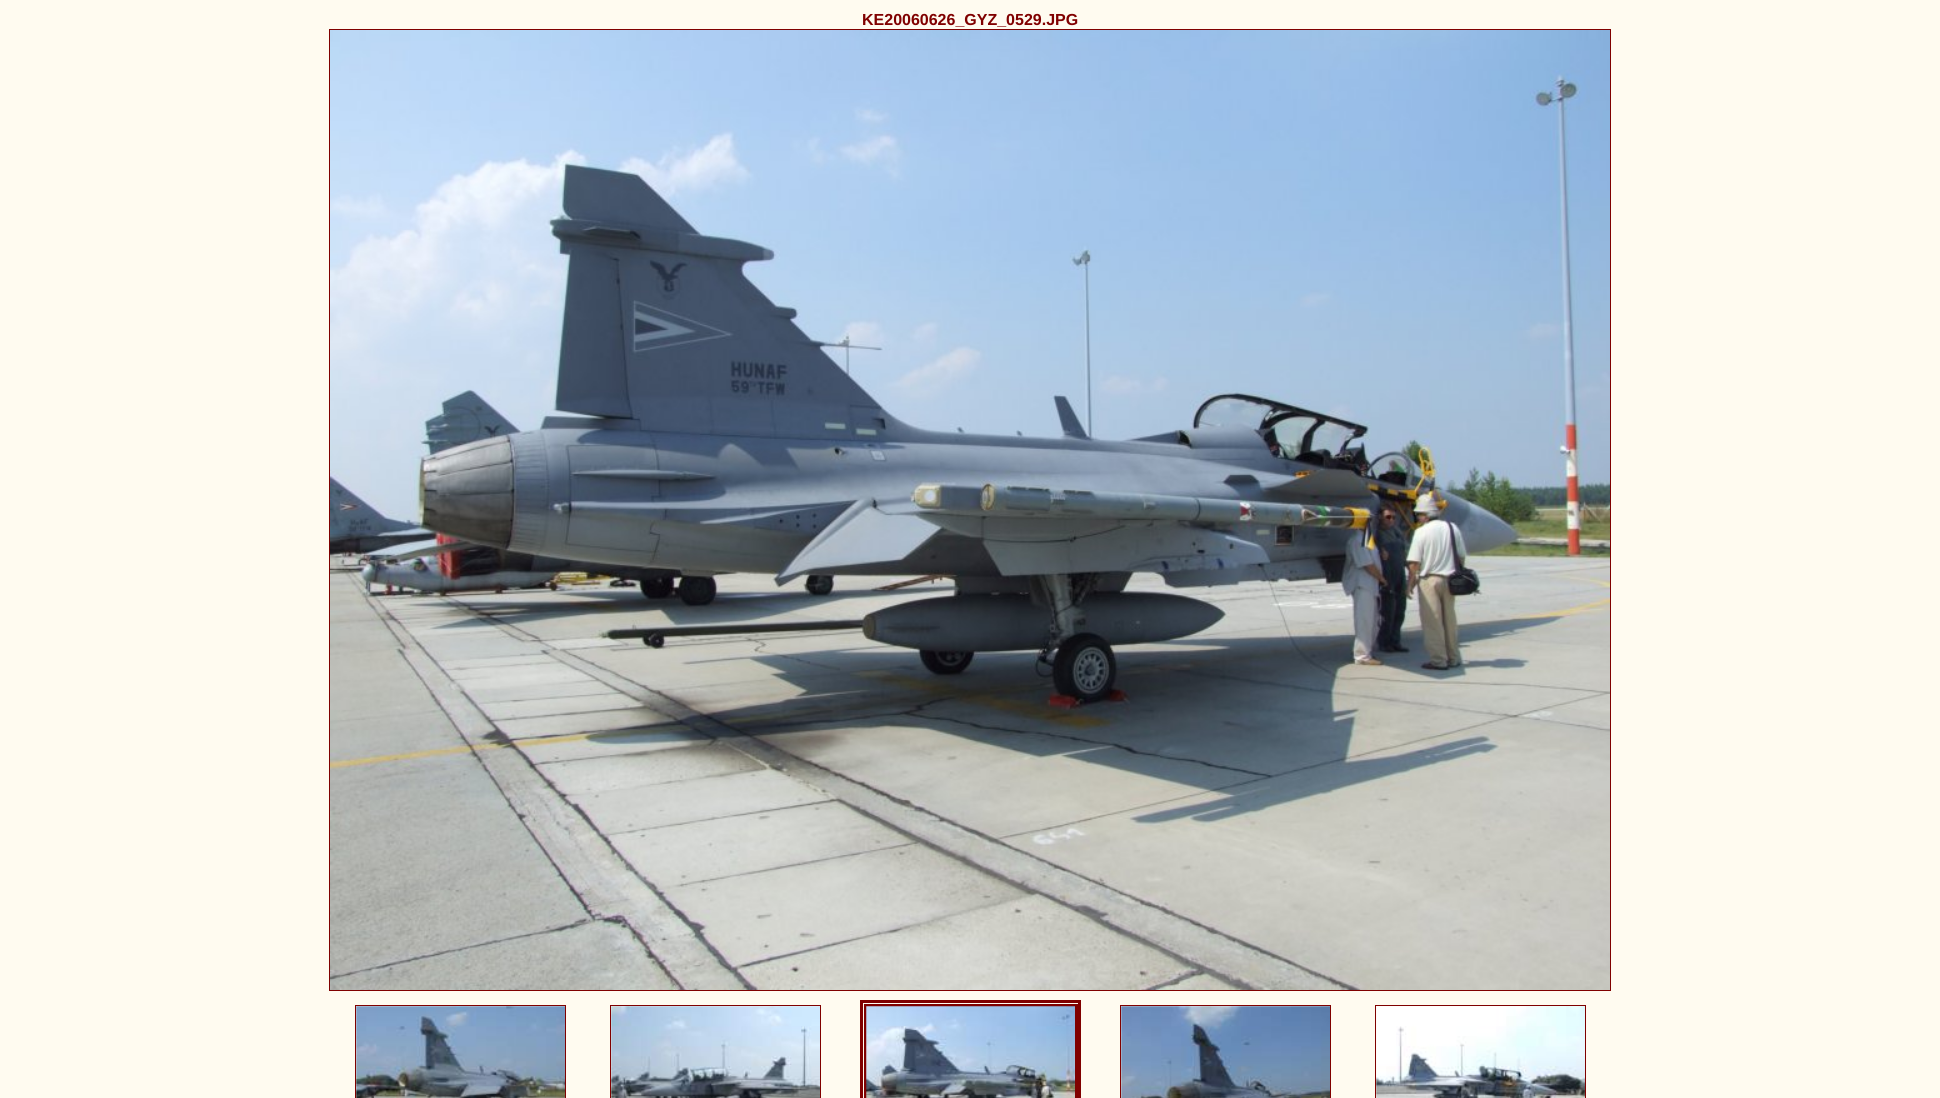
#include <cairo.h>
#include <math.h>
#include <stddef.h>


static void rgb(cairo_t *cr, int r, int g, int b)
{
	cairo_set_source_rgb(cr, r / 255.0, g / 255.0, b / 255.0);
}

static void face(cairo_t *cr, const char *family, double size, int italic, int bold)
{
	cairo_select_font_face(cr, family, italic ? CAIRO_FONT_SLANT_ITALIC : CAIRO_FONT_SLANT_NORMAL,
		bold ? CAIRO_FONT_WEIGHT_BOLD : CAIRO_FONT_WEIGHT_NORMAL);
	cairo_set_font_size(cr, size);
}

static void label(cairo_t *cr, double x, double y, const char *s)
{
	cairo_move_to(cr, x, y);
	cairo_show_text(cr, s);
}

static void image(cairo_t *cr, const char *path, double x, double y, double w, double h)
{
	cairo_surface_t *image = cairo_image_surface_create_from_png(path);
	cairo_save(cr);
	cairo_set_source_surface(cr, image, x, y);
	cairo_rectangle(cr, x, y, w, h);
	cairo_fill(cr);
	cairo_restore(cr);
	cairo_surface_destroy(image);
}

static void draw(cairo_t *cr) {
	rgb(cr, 255, 251, 240);
	cairo_paint(cr);
	face(cr, "Liberation Sans", 16, 0, 1);
	rgb(cr, 128, 0, 0);
	label(cr, 862, 25, "KE20060626_GYZ_0529.JPG");
	cairo_rectangle(cr, 329.5, 29.5, 1281, 961);
	cairo_set_line_width(cr, 1);
	cairo_stroke(cr);
	image(cr, "image0.png", 330, 30, 1280, 960);
	cairo_rectangle(cr, 355.5, 1005.5, 210, 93);
	cairo_stroke(cr);
	image(cr, "image1.png", 356, 1006, 209, 92);
	cairo_rectangle(cr, 610.5, 1005.5, 210, 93);
	cairo_stroke(cr);
	image(cr, "image2.png", 611, 1006, 209, 92);
	cairo_rectangle(cr, 861.5, 1001.5, 218, 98);
	cairo_set_line_width(cr, 3);
	cairo_stroke(cr);
	cairo_rectangle(cr, 865.5, 1005.5, 211, 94);
	cairo_stroke(cr);
	image(cr, "image3.png", 866, 1006, 209, 92);
	cairo_rectangle(cr, 1120.5, 1005.5, 210, 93);
	cairo_set_line_width(cr, 1);
	cairo_stroke(cr);
	image(cr, "image4.png", 1121, 1006, 209, 92);
	cairo_rectangle(cr, 1375.5, 1005.5, 210, 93);
	cairo_stroke(cr);
	image(cr, "image5.png", 1376, 1006, 209, 92);
}

int main(void) {
	cairo_surface_t *surface = cairo_image_surface_create(CAIRO_FORMAT_RGB24, 1940, 1098);
	cairo_t *cr = cairo_create(surface);
	cairo_font_options_t *options = cairo_font_options_create();
	cairo_font_options_set_hint_metrics(options, CAIRO_HINT_METRICS_OFF);
	cairo_font_options_set_hint_style(options, CAIRO_HINT_STYLE_NONE);
	cairo_set_font_options(cr, options);
	cairo_set_miter_limit(cr, 4);
	draw(cr);
	cairo_surface_write_to_png(surface, "render.png");
	cairo_font_options_destroy(options);
	cairo_destroy(cr);
	cairo_surface_destroy(surface);
	return 0;
}
